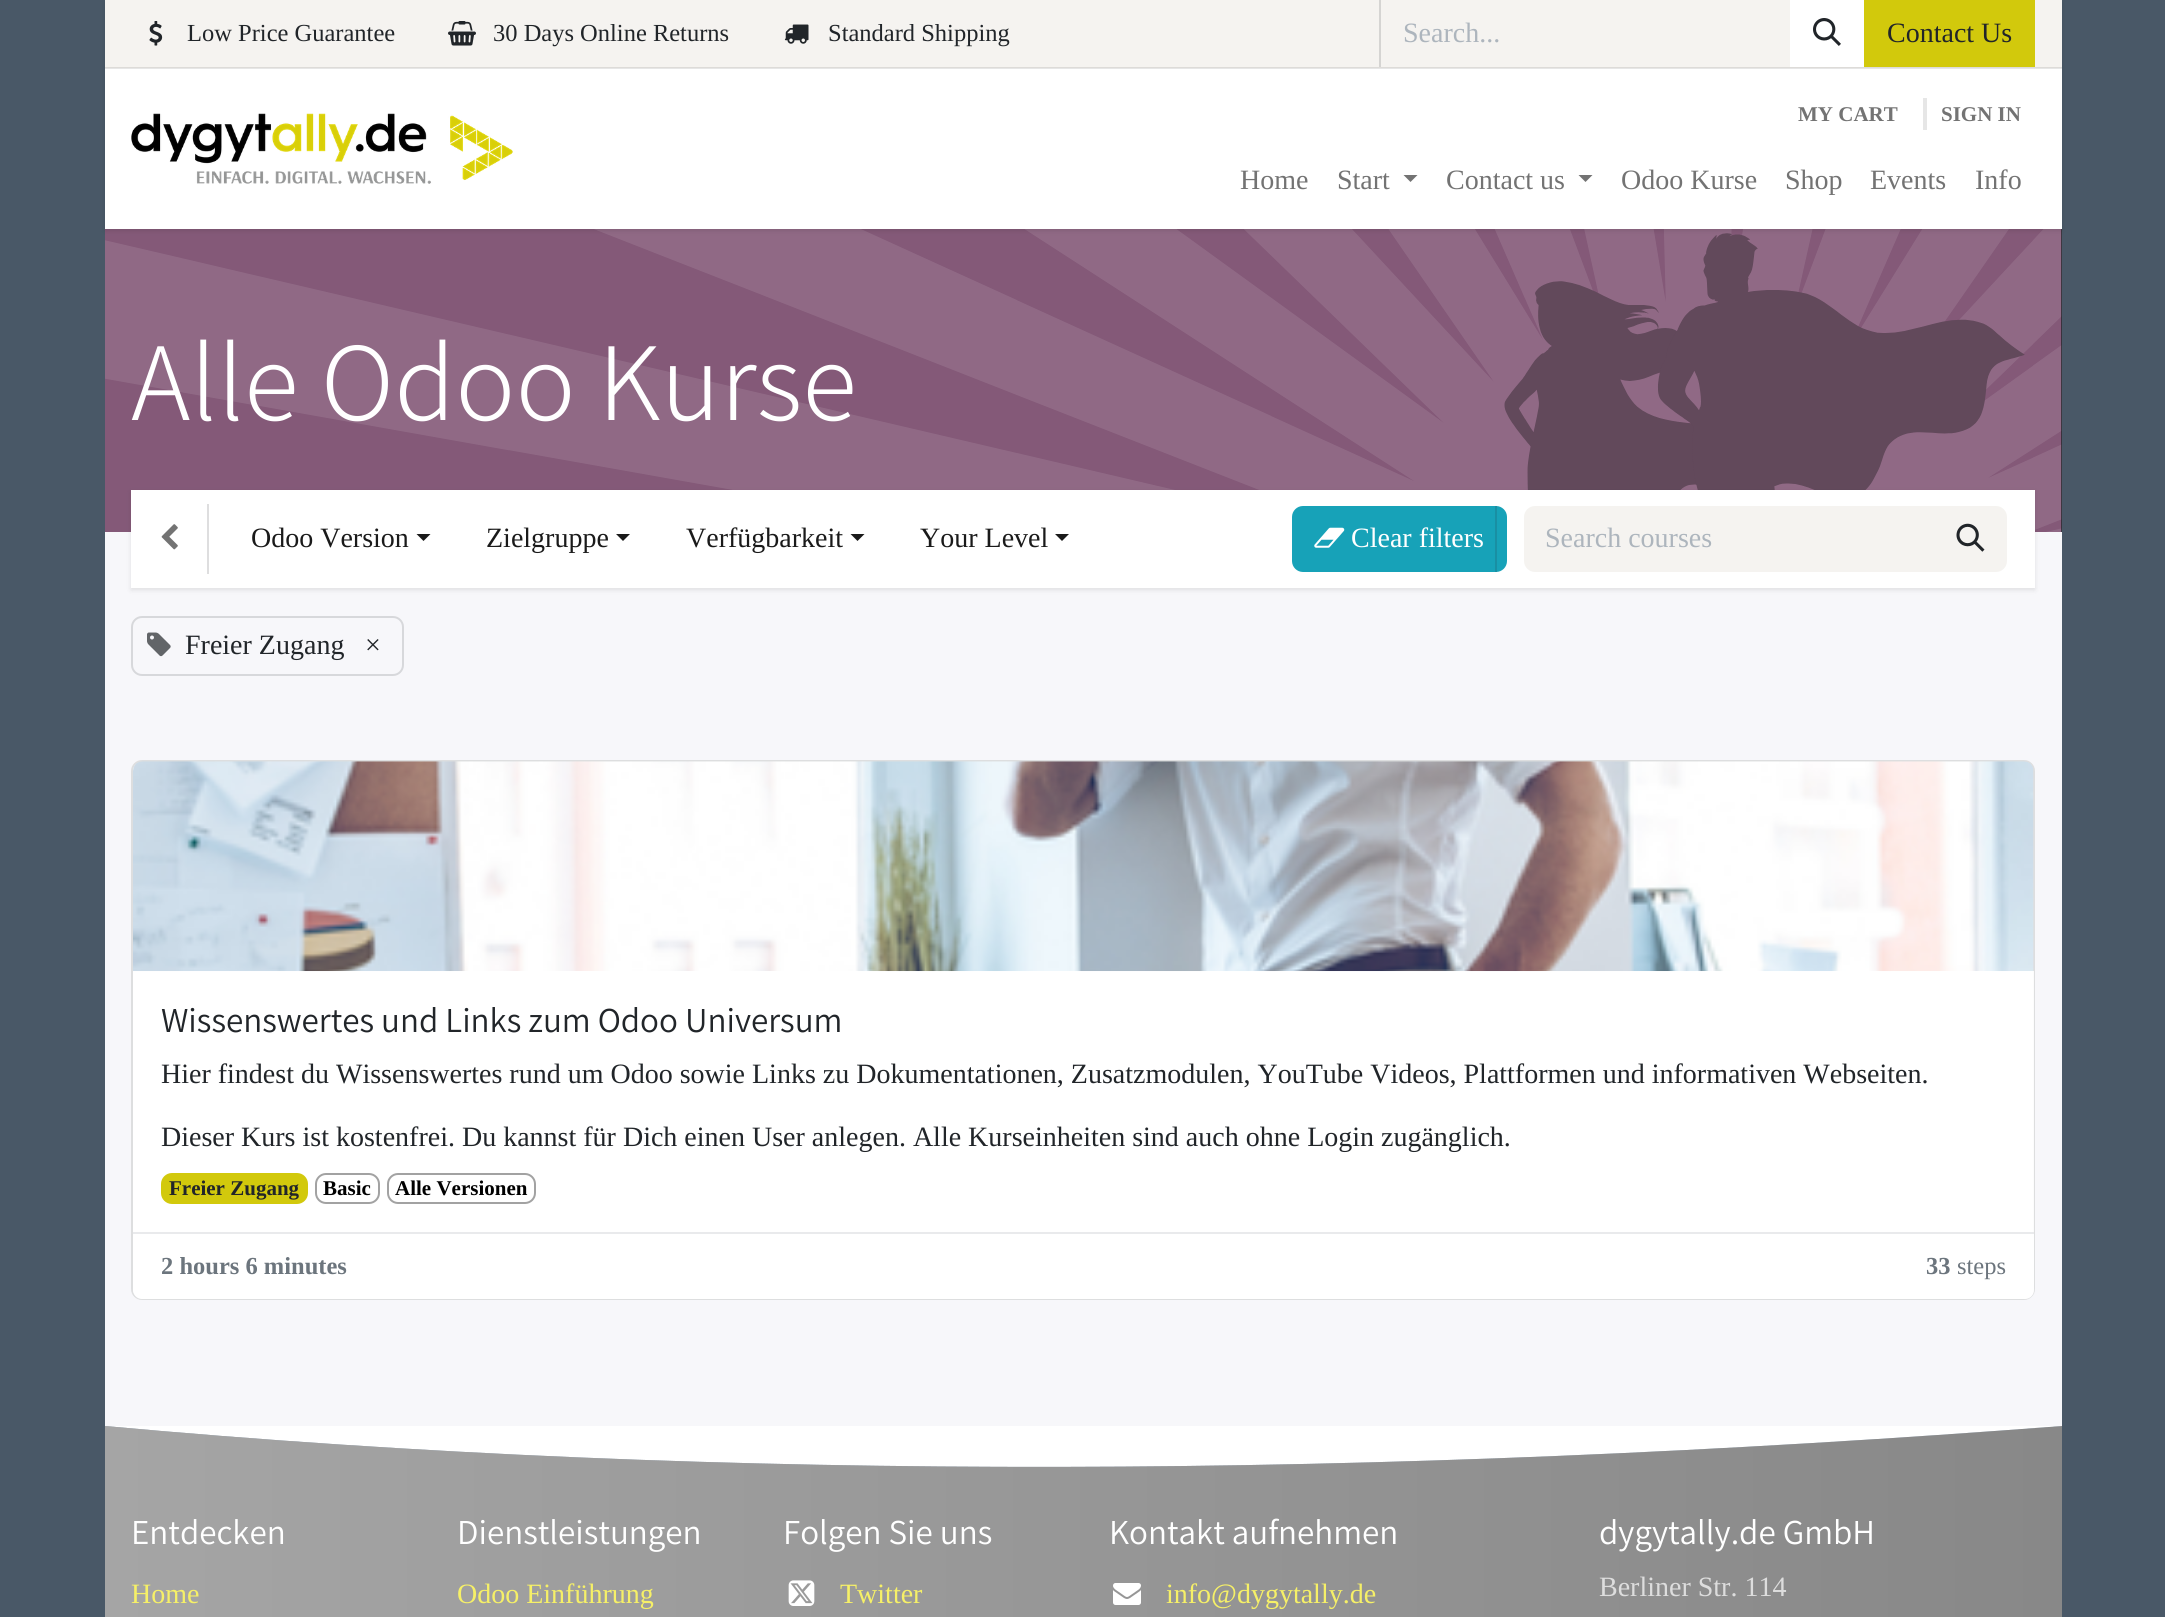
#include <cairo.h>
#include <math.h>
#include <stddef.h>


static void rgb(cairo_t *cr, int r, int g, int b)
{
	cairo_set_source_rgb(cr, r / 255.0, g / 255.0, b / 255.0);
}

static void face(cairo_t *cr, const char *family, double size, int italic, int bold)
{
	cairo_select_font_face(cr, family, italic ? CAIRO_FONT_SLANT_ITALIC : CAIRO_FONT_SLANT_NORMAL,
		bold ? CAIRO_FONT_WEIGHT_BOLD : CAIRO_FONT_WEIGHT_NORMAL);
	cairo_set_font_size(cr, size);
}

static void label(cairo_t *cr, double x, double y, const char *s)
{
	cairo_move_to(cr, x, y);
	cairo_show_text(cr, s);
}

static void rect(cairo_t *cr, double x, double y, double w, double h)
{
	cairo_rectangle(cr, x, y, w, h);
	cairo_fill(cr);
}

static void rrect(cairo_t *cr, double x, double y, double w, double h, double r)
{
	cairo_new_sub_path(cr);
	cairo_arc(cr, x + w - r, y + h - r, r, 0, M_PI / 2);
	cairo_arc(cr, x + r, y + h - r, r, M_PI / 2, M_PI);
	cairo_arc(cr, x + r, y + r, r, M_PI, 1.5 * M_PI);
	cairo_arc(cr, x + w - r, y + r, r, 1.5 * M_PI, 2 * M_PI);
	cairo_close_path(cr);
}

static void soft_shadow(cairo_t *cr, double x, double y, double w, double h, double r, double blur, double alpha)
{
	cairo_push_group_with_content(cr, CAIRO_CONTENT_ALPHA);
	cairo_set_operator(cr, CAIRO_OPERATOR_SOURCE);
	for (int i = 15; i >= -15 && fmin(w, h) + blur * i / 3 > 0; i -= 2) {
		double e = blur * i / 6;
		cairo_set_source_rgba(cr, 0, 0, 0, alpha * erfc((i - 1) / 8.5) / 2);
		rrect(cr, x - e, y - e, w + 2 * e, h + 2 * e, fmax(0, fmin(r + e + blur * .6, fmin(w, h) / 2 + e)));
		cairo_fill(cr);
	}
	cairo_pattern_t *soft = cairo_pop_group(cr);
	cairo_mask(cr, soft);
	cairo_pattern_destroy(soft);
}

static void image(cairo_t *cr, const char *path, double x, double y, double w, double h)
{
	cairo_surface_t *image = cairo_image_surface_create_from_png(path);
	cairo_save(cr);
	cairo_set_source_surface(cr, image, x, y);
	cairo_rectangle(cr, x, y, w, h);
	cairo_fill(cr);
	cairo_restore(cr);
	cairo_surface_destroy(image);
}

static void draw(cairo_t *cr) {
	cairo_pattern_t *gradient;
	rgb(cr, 73, 88, 103);
	cairo_paint(cr);
	rgb(cr, 33, 37, 41);
	rect(cr, 2061, 229, 1, 303);
	image(cr, "image5.png", 105, 229, 1957, 303);
	rgb(cr, 0, 0, 0);
	soft_shadow(cr, 105, 2, 1957, 229, 0, 2.5, 0.1);
	rgb(cr, 255, 255, 255);
	rect(cr, 105, 68, 1957, 161);
	rgb(cr, 245, 243, 240);
	rect(cr, 105, 0, 1957, 68);
	cairo_set_source_rgba(cr, 0, 0, 0, 0.1);
	rect(cr, 105, 67, 1957, 2);
	image(cr, "image0.png", 149, 21, 14, 25);
	face(cr, "Liberation Serif", 24.5, 0, 0);
	rgb(cr, 33, 37, 41);
	label(cr, 187, 41, "Low Price Guarantee");
	image(cr, "image1.png", 448, 21, 28, 25);
	label(cr, 493, 41, "30 Days Online Returns");
	image(cr, "image2.png", 784, 24, 25, 20);
	label(cr, 828, 41, "Standard Shipping");
	rgb(cr, 213, 212, 210);
	rect(cr, 1379, 0, 2, 67);
	face(cr, "Liberation Serif", 28, 0, 0);
	rgb(cr, 173, 181, 189);
	label(cr, 1403, 42, "Search...");
	rgb(cr, 255, 255, 255);
	rect(cr, 1790, 0, 74, 67);
	image(cr, "image3.png", 1813, 18, 28, 28);
	rgb(cr, 210, 201, 12);
	rect(cr, 1864, 0, 171, 67);
	rgb(cr, 33, 37, 41);
	label(cr, 1887, 42, "Contact Us");
	image(cr, "image4.png", 131, 113, 382, 71);
	face(cr, "Liberation Serif", 21, 0, 1);
	rgb(cr, 115, 115, 115);
	label(cr, 1798, 121, "MY CART");
	rgb(cr, 230, 230, 230);
	rect(cr, 1923, 98, 4, 32);
	rgb(cr, 115, 115, 115);
	label(cr, 1941, 121, "SIGN IN");
	face(cr, "Liberation Serif", 28, 0, 0);
	label(cr, 1240, 189, "Home");
	label(cr, 1337, 189, "Start");
	cairo_new_path(cr);
	cairo_move_to(cr, 1403.5, 175);
	cairo_line_to(cr, 1417.5, 175);
	cairo_line_to(cr, 1410.5, 182);
	cairo_close_path(cr);
	cairo_fill(cr);
	label(cr, 1446, 189, "Contact us");
	cairo_new_path(cr);
	cairo_move_to(cr, 1578.5, 175);
	cairo_line_to(cr, 1592.5, 175);
	cairo_line_to(cr, 1585.5, 182);
	cairo_close_path(cr);
	cairo_fill(cr);
	label(cr, 1621, 189, "Odoo Kurse");
	label(cr, 1785, 189, "Shop");
	label(cr, 1870, 189, "Events");
	label(cr, 1975, 189, "Info");
	rgb(cr, 247, 247, 250);
	rect(cr, 105, 532, 1957, 894);
	face(cr, "Assistant Light", 112, 0, 0);
	rgb(cr, 255, 255, 255);
	label(cr, 131, 420, "Alle Odoo Kurse");
	rgb(cr, 0, 0, 0);
	soft_shadow(cr, 131, 492, 1904, 98, 0, 2.5, 0.1);
	rgb(cr, 255, 255, 255);
	rect(cr, 131, 490, 1904, 98);
	rgb(cr, 222, 222, 223);
	rect(cr, 207, 504, 2, 70);
	image(cr, "image6.png", 161, 524, 17, 26);
	face(cr, "Liberation Serif", 28, 0, 0);
	rgb(cr, 26, 26, 26);
	label(cr, 251, 547, "Odoo Version");
	cairo_new_path(cr);
	cairo_move_to(cr, 416.5, 534);
	cairo_line_to(cr, 430.5, 534);
	cairo_line_to(cr, 423.5, 541);
	cairo_close_path(cr);
	cairo_fill(cr);
	label(cr, 486, 547, "Zielgruppe");
	cairo_new_path(cr);
	cairo_move_to(cr, 616, 534);
	cairo_line_to(cr, 630, 534);
	cairo_line_to(cr, 623, 541);
	cairo_close_path(cr);
	cairo_fill(cr);
	label(cr, 686, 547, "Verfügbarkeit");
	cairo_new_path(cr);
	cairo_move_to(cr, 850.5, 534);
	cairo_line_to(cr, 864.5, 534);
	cairo_line_to(cr, 857.5, 541);
	cairo_close_path(cr);
	cairo_fill(cr);
	label(cr, 920, 547, "Your Level");
	cairo_new_path(cr);
	cairo_move_to(cr, 1055, 534);
	cairo_line_to(cr, 1069, 534);
	cairo_line_to(cr, 1062, 541);
	cairo_close_path(cr);
	cairo_fill(cr);
	rgb(cr, 23, 162, 184);
	rrect(cr, 1293, 507, 213, 64, 10);
	cairo_fill_preserve(cr);
	cairo_stroke(cr);
	image(cr, "image7.png", 1314, 527, 31, 21);
	rgb(cr, 255, 255, 255);
	label(cr, 1351, 547, "Clear filters");
	rgb(cr, 25, 143, 163);
	rect(cr, 1495, 506, 2, 66);
	rgb(cr, 245, 243, 240);
	cairo_new_path(cr);
	cairo_move_to(cr, 1535, 506);
	cairo_line_to(cr, 1936, 506);
	cairo_line_to(cr, 1936, 572);
	cairo_line_to(cr, 1535, 572);
	cairo_curve_to(cr, 1529, 572, 1524, 567, 1524, 561);
	cairo_line_to(cr, 1524, 517);
	cairo_curve_to(cr, 1524, 511, 1529, 506, 1535, 506);
	cairo_close_path(cr);
	cairo_fill(cr);
	rgb(cr, 173, 181, 189);
	label(cr, 1545, 547, "Search courses");
	rgb(cr, 245, 243, 240);
	cairo_new_path(cr);
	cairo_move_to(cr, 1935, 507);
	cairo_line_to(cr, 1996, 507);
	cairo_curve_to(cr, 2001.5, 507, 2006, 511.5, 2006, 517);
	cairo_line_to(cr, 2006, 561);
	cairo_curve_to(cr, 2006, 566.5, 2001.5, 571, 1996, 571);
	cairo_line_to(cr, 1935, 571);
	cairo_close_path(cr);
	cairo_fill_preserve(cr);
	cairo_stroke(cr);
	image(cr, "image8.png", 1956, 523, 29, 29);
	rrect(cr, 132, 617, 271, 58, 10);
	rgb(cr, 215, 216, 219);
	cairo_stroke(cr);
	image(cr, "image9.png", 147, 632, 24, 25);
	rgb(cr, 33, 37, 41);
	label(cr, 185, 654, "Freier Zugang");
	label(cr, 365, 654, "×");
	rgb(cr, 255, 255, 255);
	rrect(cr, 131, 760, 1904, 540, 11);
	cairo_fill(cr);
	rrect(cr, 132, 761, 1902, 538, 10);
	cairo_set_source_rgba(cr, 0.129, 0.145, 0.161, 0.15);
	cairo_stroke(cr);
	image(cr, "image10.png", 133, 761, 1901, 211);
	cairo_set_source_rgba(cr, 1, 1, 1, 0.9);
	rect(cr, 133, 971, 1901, 261);
	face(cr, "Assistant", 35, 0, 0);
	rgb(cr, 33, 37, 41);
	label(cr, 161, 1032, "Wissenswertes und Links zum Odoo Universum");
	face(cr, "Liberation Serif", 28, 0, 0);
	label(cr, 161, 1083, "Hier findest du Wissenswertes rund um Odoo sowie Links zu Dokumentationen, Zusatzmodulen, YouTube Videos, Plattformen und informativen Webseiten.");
	label(cr, 161, 1146, "Dieser Kurs ist kostenfrei. Du kannst für Dich einen User anlegen. Alle Kurseinheiten sind auch ohne Login zugänglich.");
	rgb(cr, 210, 201, 12);
	rrect(cr, 161, 1173, 147, 31, 11);
	cairo_fill(cr);
	face(cr, "Liberation Serif", 21, 0, 1);
	rgb(cr, 33, 37, 41);
	label(cr, 169, 1195, "Freier Zugang");
	rrect(cr, 316, 1174, 63, 29, 10);
	rgb(cr, 162, 162, 162);
	cairo_stroke(cr);
	rgb(cr, 0, 0, 0);
	label(cr, 323, 1195, "Basic");
	rrect(cr, 388, 1174, 147, 29, 10);
	rgb(cr, 162, 162, 162);
	cairo_stroke(cr);
	rgb(cr, 0, 0, 0);
	label(cr, 395, 1195, "Alle Versionen");
	rgb(cr, 255, 255, 255);
	cairo_new_path(cr);
	cairo_move_to(cr, 133, 1232);
	cairo_line_to(cr, 2034, 1232);
	cairo_line_to(cr, 2034, 1290);
	cairo_curve_to(cr, 2034, 1295, 2030, 1299, 2025, 1299);
	cairo_line_to(cr, 142, 1299);
	cairo_curve_to(cr, 137, 1299, 133, 1295, 133, 1290);
	cairo_close_path(cr);
	cairo_fill(cr);
	rgb(cr, 233, 234, 236);
	rect(cr, 133, 1232, 1901, 2);
	face(cr, "Liberation Serif", 24.5, 0, 1);
	rgb(cr, 108, 117, 125);
	label(cr, 161, 1274, "2 hours 6 minutes");
	label(cr, 1926, 1274, "33");
	face(cr, "Liberation Serif", 24.5, 0, 0);
	label(cr, 1957, 1274, "steps");
	gradient = cairo_pattern_create_linear(105, 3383, 2062, 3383);
	cairo_pattern_add_color_stop_rgba(gradient, 0, 0.647, 0.647, 0.647, 1);
	cairo_pattern_add_color_stop_rgba(gradient, 1, 0.533, 0.533, 0.533, 1);
	cairo_set_source(cr, gradient);
	cairo_pattern_destroy(gradient);
	cairo_new_path(cr);
	cairo_move_to(cr, 2062, 1426);
	cairo_curve_to(cr, 1382, 1478, 727, 1483, 105, 1426);
	cairo_line_to(cr, 105, 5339);
	cairo_line_to(cr, 2062, 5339);
	cairo_close_path(cr);
	cairo_fill(cr);
	rgb(cr, 255, 255, 255);
	cairo_new_path(cr);
	cairo_move_to(cr, 2062, 1426);
	cairo_line_to(cr, 105, 1426);
	cairo_curve_to(cr, 727, 1483, 1382, 1478, 2062, 1426);
	cairo_close_path(cr);
	cairo_fill(cr);
	face(cr, "Assistant", 35, 0, 0);
	label(cr, 131, 1544, "Entdecken");
	face(cr, "Liberation Serif", 28, 0, 0);
	rgb(cr, 246, 240, 103);
	label(cr, 131, 1603, "Home");
	face(cr, "Assistant", 35, 0, 0);
	rgb(cr, 255, 255, 255);
	label(cr, 457, 1544, "Dienstleistungen");
	face(cr, "Liberation Serif", 28, 0, 0);
	rgb(cr, 246, 240, 103);
	label(cr, 457, 1603, "Odoo Einführung");
	face(cr, "Assistant", 35, 0, 0);
	rgb(cr, 255, 255, 255);
	label(cr, 783, 1544, "Folgen Sie uns");
	image(cr, "image11.png", 788, 1580, 27, 26);
	face(cr, "Liberation Serif", 28, 0, 0);
	rgb(cr, 246, 240, 103);
	label(cr, 840, 1603, "Twitter");
	face(cr, "Assistant", 35, 0, 0);
	rgb(cr, 255, 255, 255);
	label(cr, 1109, 1544, "Kontakt aufnehmen");
	image(cr, "image12.png", 1113, 1583, 28, 22);
	face(cr, "Liberation Serif", 28, 0, 0);
	rgb(cr, 246, 240, 103);
	label(cr, 1166, 1603, "info@dygytally.de");
	face(cr, "Assistant", 35, 0, 0);
	rgb(cr, 255, 255, 255);
	label(cr, 1599, 1544, "dygytally.de GmbH");
	face(cr, "Liberation Serif", 28, 0, 0);
	rgb(cr, 221, 221, 221);
	label(cr, 1599, 1596, "Berliner Str. 114");
}

int main(void) {
	cairo_surface_t *surface = cairo_image_surface_create(CAIRO_FORMAT_RGB24, 2165, 1617);
	cairo_t *cr = cairo_create(surface);
	cairo_font_options_t *options = cairo_font_options_create();
	cairo_font_options_set_hint_metrics(options, CAIRO_HINT_METRICS_OFF);
	cairo_font_options_set_hint_style(options, CAIRO_HINT_STYLE_NONE);
	cairo_set_font_options(cr, options);
	cairo_set_miter_limit(cr, 4);
	draw(cr);
	cairo_surface_write_to_png(surface, "render.png");
	cairo_font_options_destroy(options);
	cairo_destroy(cr);
	cairo_surface_destroy(surface);
	return 0;
}
